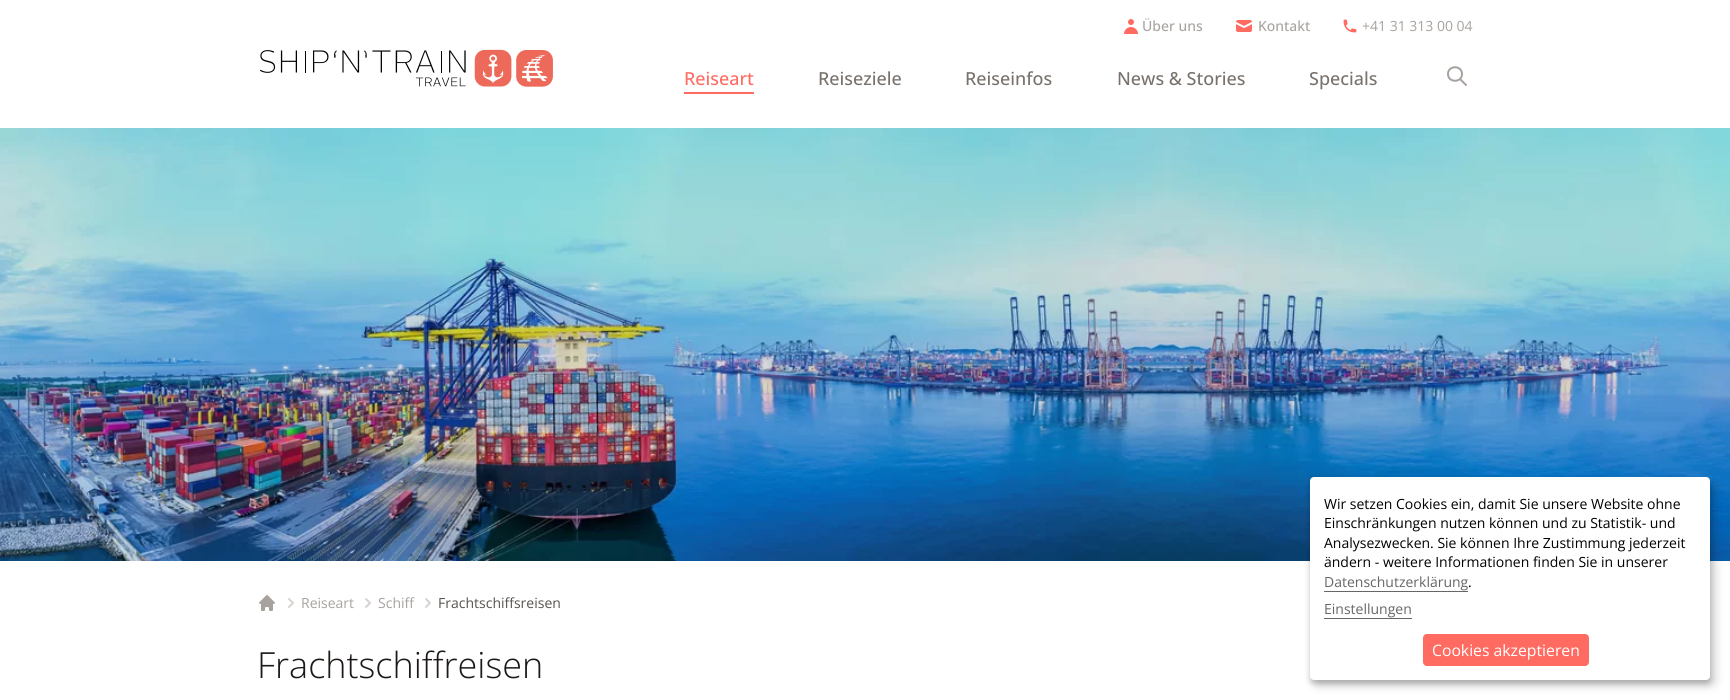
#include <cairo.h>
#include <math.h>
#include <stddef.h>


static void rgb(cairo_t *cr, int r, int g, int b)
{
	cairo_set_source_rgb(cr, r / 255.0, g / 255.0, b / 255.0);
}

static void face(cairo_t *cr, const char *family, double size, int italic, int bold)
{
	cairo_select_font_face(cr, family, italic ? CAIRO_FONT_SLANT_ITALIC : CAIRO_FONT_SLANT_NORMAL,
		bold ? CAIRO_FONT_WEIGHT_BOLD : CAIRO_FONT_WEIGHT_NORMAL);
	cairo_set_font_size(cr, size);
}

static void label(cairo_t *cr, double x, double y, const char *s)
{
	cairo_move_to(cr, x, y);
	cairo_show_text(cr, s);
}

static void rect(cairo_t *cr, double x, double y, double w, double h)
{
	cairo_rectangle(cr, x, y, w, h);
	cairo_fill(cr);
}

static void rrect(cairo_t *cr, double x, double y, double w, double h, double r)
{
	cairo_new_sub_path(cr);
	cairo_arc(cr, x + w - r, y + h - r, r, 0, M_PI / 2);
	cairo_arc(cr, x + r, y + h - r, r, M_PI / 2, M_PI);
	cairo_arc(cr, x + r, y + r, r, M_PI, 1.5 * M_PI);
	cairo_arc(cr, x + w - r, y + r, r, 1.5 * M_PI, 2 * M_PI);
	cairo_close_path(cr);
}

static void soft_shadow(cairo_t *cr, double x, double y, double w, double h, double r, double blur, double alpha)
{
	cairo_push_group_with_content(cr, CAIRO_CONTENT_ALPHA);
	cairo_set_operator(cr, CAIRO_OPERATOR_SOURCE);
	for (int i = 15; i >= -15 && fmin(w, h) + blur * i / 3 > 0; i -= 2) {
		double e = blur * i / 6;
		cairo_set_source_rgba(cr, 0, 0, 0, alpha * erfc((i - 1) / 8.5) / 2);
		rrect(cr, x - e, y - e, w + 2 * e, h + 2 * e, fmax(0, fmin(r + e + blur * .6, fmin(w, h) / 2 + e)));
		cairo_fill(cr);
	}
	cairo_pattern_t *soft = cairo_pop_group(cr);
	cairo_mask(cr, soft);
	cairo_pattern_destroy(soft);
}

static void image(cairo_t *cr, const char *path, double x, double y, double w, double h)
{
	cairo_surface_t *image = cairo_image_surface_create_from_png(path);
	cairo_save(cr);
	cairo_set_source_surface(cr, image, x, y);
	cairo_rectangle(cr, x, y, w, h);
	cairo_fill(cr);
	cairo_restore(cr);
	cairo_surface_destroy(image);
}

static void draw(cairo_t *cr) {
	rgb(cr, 255, 255, 255);
	cairo_paint(cr);
	image(cr, "image0.png", 1124, 19, 14, 15);
	face(cr, "Open Sans Medium", 14, 0, 0);
	rgb(cr, 168, 162, 158);
	label(cr, 1142, 31, "Über uns");
	image(cr, "image1.png", 1236, 20, 16, 12);
	label(cr, 1258, 31, "Kontakt");
	image(cr, "image2.png", 1343, 19, 14, 14);
	face(cr, "Open Sans", 14, 0, 0);
	label(cr, 1362, 31, "+41 31 313 00 04");
	image(cr, "image3.png", 260, 49, 293, 38);
	rgb(cr, 255, 106, 97);
	rect(cr, 684, 92, 70, 2);
	face(cr, "Open Sans Medium", 18, 0, 0);
	label(cr, 684, 85, "Reiseart");
	rgb(cr, 120, 113, 108);
	label(cr, 818, 85, "Reiseziele");
	label(cr, 965, 85, "Reiseinfos");
	label(cr, 1117, 85, "News & Stories");
	label(cr, 1309, 85, "Specials");
	cairo_new_path(cr);
	cairo_move_to(cr, 1466, 85);
	cairo_line_to(cr, 1460, 79);
	cairo_move_to(cr, 1462, 74);
	cairo_curve_to(cr, 1462, 83, 1448, 83, 1448, 74);
	cairo_curve_to(cr, 1448, 65, 1462, 65, 1462, 74);
	cairo_close_path(cr);
	rgb(cr, 168, 162, 158);
	cairo_set_line_cap(cr, CAIRO_LINE_CAP_ROUND);
	cairo_set_line_join(cr, CAIRO_LINE_JOIN_ROUND);
	cairo_stroke(cr);
	image(cr, "image4.png", 0, 128, 1730, 433);
	image(cr, "image5.png", 259, 595, 16, 16);
	image(cr, "image6.png", 288, 598, 6, 10);
	face(cr, "Open Sans", 14, 0, 0);
	label(cr, 301, 608, "Reiseart");
	image(cr, "image6.png", 365, 598, 6, 10);
	label(cr, 378, 608, "Schiff");
	image(cr, "image6.png", 425, 598, 6, 10);
	rgb(cr, 87, 83, 78);
	label(cr, 438, 608, "Frachtschiffsreisen");
	face(cr, "Open Sans Light", 36, 0, 0);
	rgb(cr, 28, 25, 23);
	label(cr, 257, 678, "Frachtschiffreisen");
	rgb(cr, 0, 0, 0);
	soft_shadow(cr, 1315, 482, 400, 203, 4, 5, 0.19);
	soft_shadow(cr, 1310, 481, 400, 203, 4, 3, 0.2);
	rgb(cr, 255, 255, 255);
	rrect(cr, 1310, 477, 400, 203, 4);
	cairo_fill(cr);
	face(cr, "Open Sans", 14, 0, 0);
	rgb(cr, 0, 0, 0);
	label(cr, 1324, 509, "Wir setzen Cookies ein, damit Sie unsere Website ohne");
	label(cr, 1324, 528, "Einschränkungen nutzen können und zu Statistik- und");
	label(cr, 1324, 548, "Analysezwecken. Sie können Ihre Zustimmung jederzeit");
	label(cr, 1324, 567, "ändern - weitere Informationen finden Sie in unserer");
	rgb(cr, 102, 102, 102);
	label(cr, 1324, 587, "Datenschutzerklärung");
	rgb(cr, 0, 0, 0);
	label(cr, 1468, 587, ".");
	rgb(cr, 102, 102, 102);
	rect(cr, 1324, 591, 144, 1);
	rect(cr, 1324, 618, 88, 1);
	label(cr, 1324, 614, "Einstellungen");
	rgb(cr, 255, 106, 97);
	rrect(cr, 1423, 634, 166, 32, 4);
	cairo_fill(cr);
	face(cr, "Open Sans", 15.75, 0, 0);
	rgb(cr, 255, 255, 255);
	label(cr, 1432, 656, "Cookies akzeptieren");
}

int main(void) {
	cairo_surface_t *surface = cairo_image_surface_create(CAIRO_FORMAT_RGB24, 1730, 700);
	cairo_t *cr = cairo_create(surface);
	cairo_font_options_t *options = cairo_font_options_create();
	cairo_font_options_set_hint_metrics(options, CAIRO_HINT_METRICS_OFF);
	cairo_font_options_set_hint_style(options, CAIRO_HINT_STYLE_NONE);
	cairo_set_font_options(cr, options);
	cairo_set_miter_limit(cr, 4);
	draw(cr);
	cairo_surface_write_to_png(surface, "render.png");
	cairo_font_options_destroy(options);
	cairo_destroy(cr);
	cairo_surface_destroy(surface);
	return 0;
}
